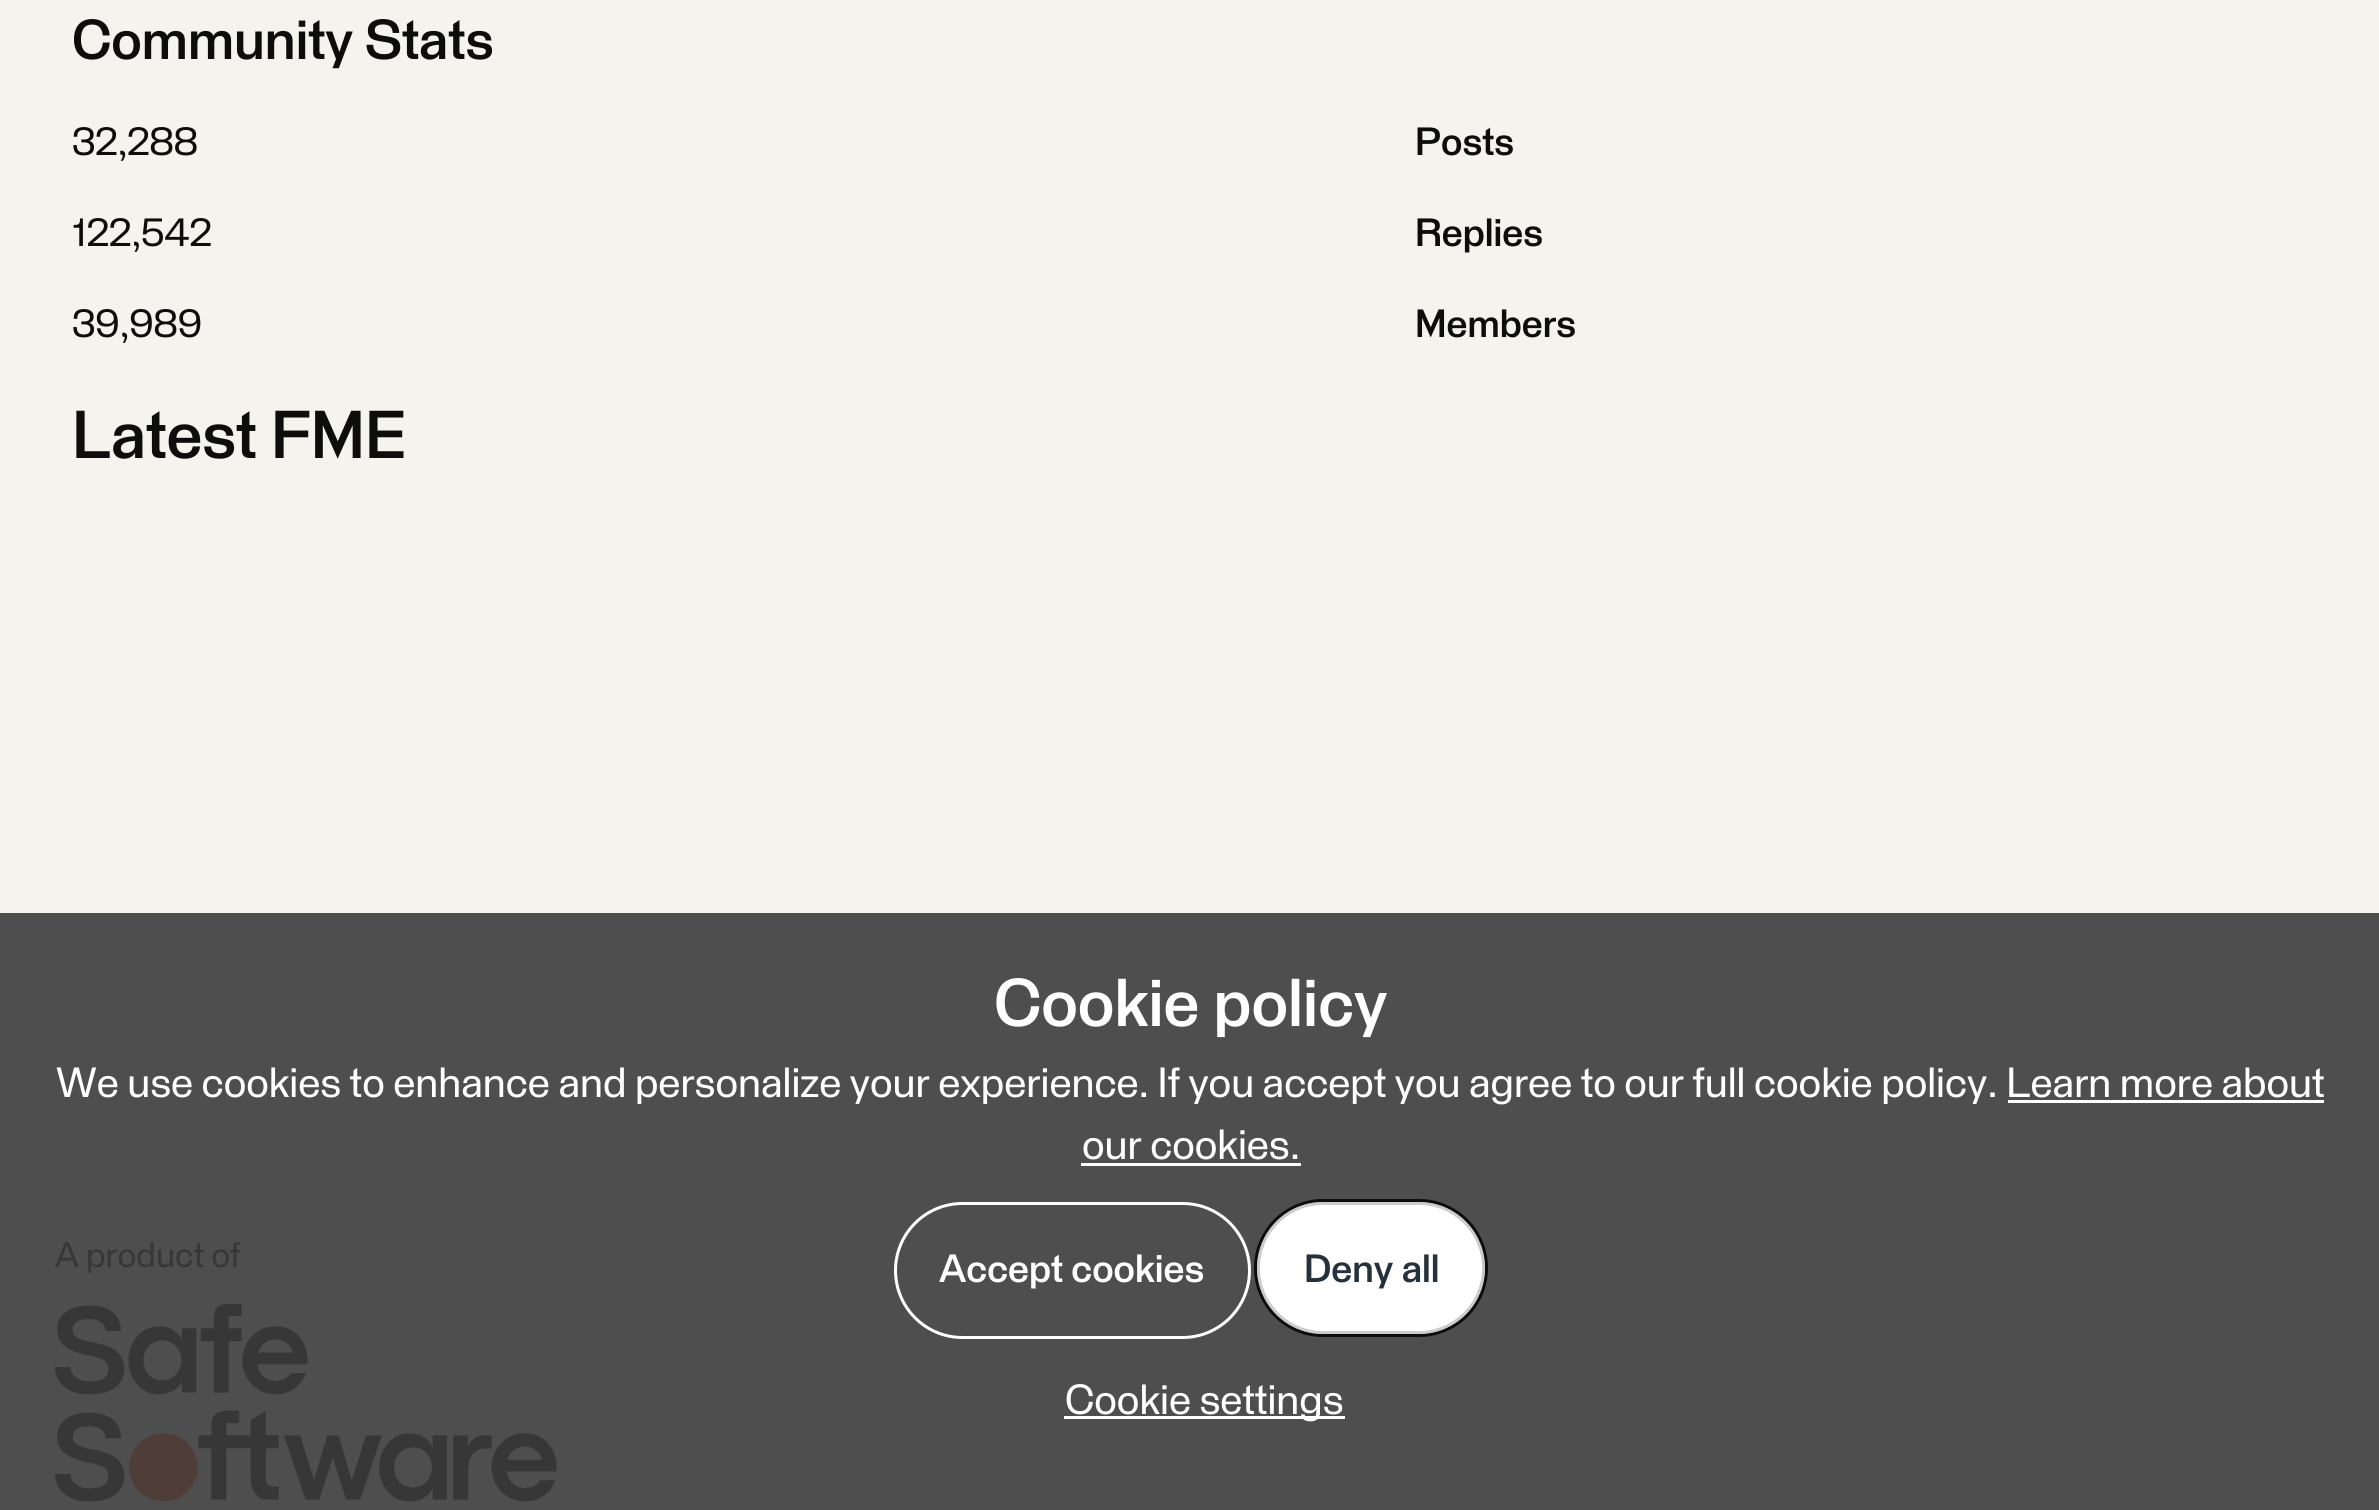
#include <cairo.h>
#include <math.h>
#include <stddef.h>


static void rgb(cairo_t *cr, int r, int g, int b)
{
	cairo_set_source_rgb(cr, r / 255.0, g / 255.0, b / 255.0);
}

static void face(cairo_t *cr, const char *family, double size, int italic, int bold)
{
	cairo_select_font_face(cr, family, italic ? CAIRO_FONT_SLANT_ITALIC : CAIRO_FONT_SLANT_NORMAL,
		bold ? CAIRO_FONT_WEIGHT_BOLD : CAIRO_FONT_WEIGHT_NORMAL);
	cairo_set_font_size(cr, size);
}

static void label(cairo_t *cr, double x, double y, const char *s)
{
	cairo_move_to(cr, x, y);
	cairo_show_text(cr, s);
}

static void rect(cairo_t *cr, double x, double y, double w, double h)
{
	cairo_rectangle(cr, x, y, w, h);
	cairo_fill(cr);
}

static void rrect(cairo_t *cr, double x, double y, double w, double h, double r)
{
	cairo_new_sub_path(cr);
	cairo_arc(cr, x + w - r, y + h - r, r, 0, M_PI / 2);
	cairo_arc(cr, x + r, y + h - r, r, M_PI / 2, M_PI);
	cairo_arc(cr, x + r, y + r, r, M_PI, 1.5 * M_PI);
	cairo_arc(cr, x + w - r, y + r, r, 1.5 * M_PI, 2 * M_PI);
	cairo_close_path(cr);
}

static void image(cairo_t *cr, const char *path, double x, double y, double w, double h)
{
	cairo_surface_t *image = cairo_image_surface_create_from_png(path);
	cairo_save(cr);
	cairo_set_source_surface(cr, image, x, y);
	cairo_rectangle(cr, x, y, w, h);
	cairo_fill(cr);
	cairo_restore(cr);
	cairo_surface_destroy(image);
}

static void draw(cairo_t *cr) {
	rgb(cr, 244, 243, 237);
	cairo_paint(cr);
	rgb(cr, 78, 78, 78);
	rect(cr, 0, 913, 2379, 597);
	face(cr, "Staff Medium", 55, 0, 0);
	rgb(cr, 13, 13, 12);
	label(cr, 72, 59, "Community Stats");
	face(cr, "Staff", 38.5, 0, 0);
	label(cr, 72, 155, "32,288");
	face(cr, "Staff Medium", 38.5, 0, 0);
	label(cr, 1415, 155, "Posts");
	face(cr, "Staff", 38.5, 0, 0);
	label(cr, 72, 246, "122,542");
	face(cr, "Staff Medium", 38.5, 0, 0);
	label(cr, 1415, 246, "Replies");
	face(cr, "Staff", 38.5, 0, 0);
	label(cr, 72, 337, "39,989");
	face(cr, "Staff Medium", 38.5, 0, 0);
	label(cr, 1415, 337, "Members");
	face(cr, "Staff Medium", 66, 0, 0);
	label(cr, 72, 458, "Latest FME");
	rgb(cr, 255, 255, 255);
	label(cr, 994, 1026, "Cookie policy");
	face(cr, "Staff", 41.25, 0, 0);
	label(cr, 56, 1097, "We use cookies to enhance and personalize your experience. If you accept you agree to our full cookie policy. Learn more about");
	rect(cr, 2008, 1100, 316, 3);
	label(cr, 1082, 1159, "our cookies.");
	rect(cr, 1081, 1163, 220, 3);
	rrect(cr, 895.5, 1203.5, 354, 134, 67);
	cairo_set_line_width(cr, 3);
	cairo_stroke(cr);
	face(cr, "Staff Medium", 38.5, 0, 0);
	label(cr, 939, 1282, "Accept cookies");
	rrect(cr, 1255.5, 1200.5, 231, 135, 67.5);
	rgb(cr, 13, 13, 12);
	cairo_stroke(cr);
	rgb(cr, 255, 255, 255);
	rrect(cr, 1257, 1202, 228, 132, 66);
	cairo_fill(cr);
	rrect(cr, 1258.5, 1203.5, 225, 129, 64.5);
	cairo_set_source_rgba(cr, 0, 0, 0, 0.2);
	cairo_stroke(cr);
	rgb(cr, 37, 49, 59);
	label(cr, 1304, 1282, "Deny all");
	rgb(cr, 255, 255, 255);
	rect(cr, 1064, 1416, 281, 3);
	face(cr, "Staff", 41.25, 0, 0);
	label(cr, 1065, 1414, "Cookie settings");
	face(cr, "Staff", 34.5, 0, 0);
	rgb(cr, 55, 55, 55);
	label(cr, 55, 1267, "A product of");
	image(cr, "image0.png", 55, 1304, 502, 198);
}

int main(void) {
	cairo_surface_t *surface = cairo_image_surface_create(CAIRO_FORMAT_RGB24, 2379, 1510);
	cairo_t *cr = cairo_create(surface);
	cairo_font_options_t *options = cairo_font_options_create();
	cairo_font_options_set_hint_metrics(options, CAIRO_HINT_METRICS_OFF);
	cairo_font_options_set_hint_style(options, CAIRO_HINT_STYLE_NONE);
	cairo_set_font_options(cr, options);
	cairo_set_miter_limit(cr, 4);
	draw(cr);
	cairo_surface_write_to_png(surface, "render.png");
	cairo_font_options_destroy(options);
	cairo_destroy(cr);
	cairo_surface_destroy(surface);
	return 0;
}
